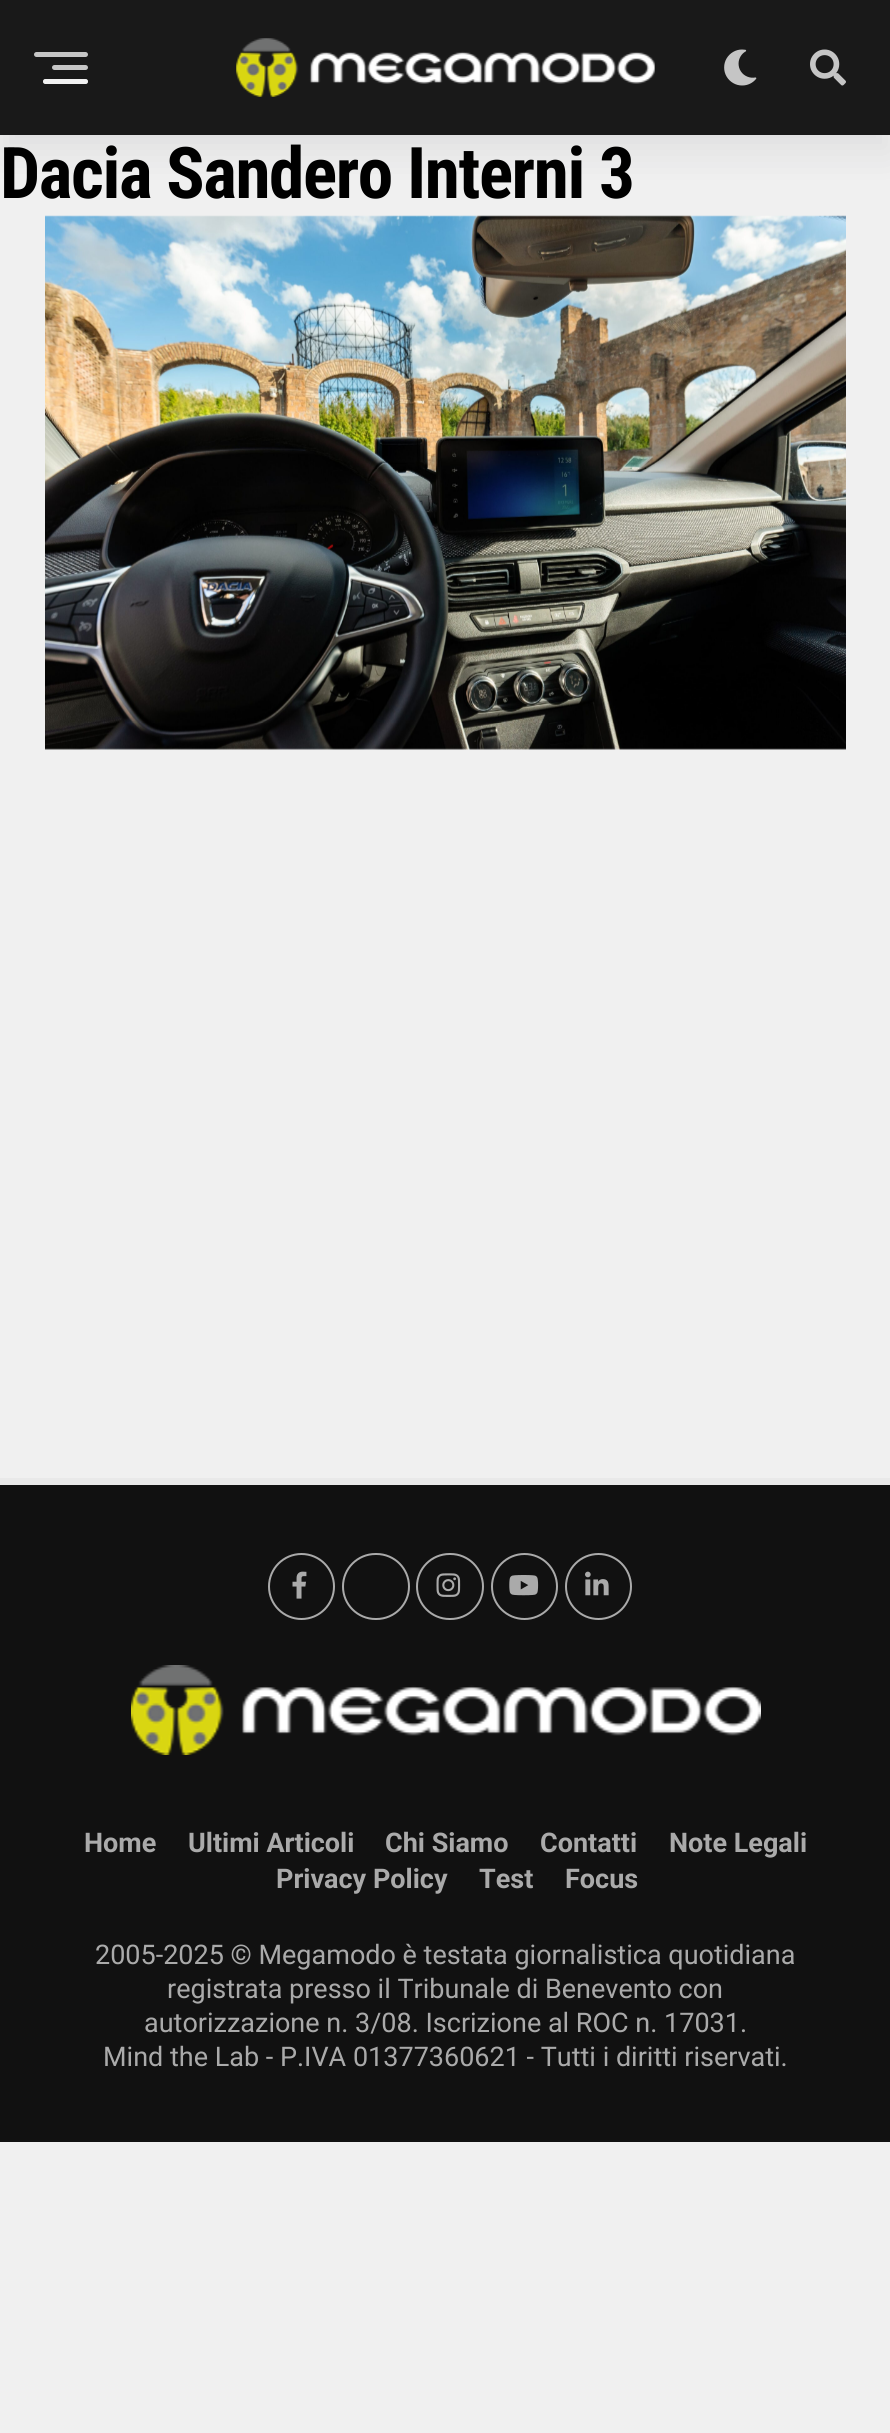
#include <cairo.h>
#include <math.h>
#include <stddef.h>


static void rgb(cairo_t *cr, int r, int g, int b)
{
	cairo_set_source_rgb(cr, r / 255.0, g / 255.0, b / 255.0);
}

static void face(cairo_t *cr, const char *family, double size, int italic, int bold)
{
	cairo_select_font_face(cr, family, italic ? CAIRO_FONT_SLANT_ITALIC : CAIRO_FONT_SLANT_NORMAL,
		bold ? CAIRO_FONT_WEIGHT_BOLD : CAIRO_FONT_WEIGHT_NORMAL);
	cairo_set_font_size(cr, size);
}

static void label(cairo_t *cr, double x, double y, const char *s)
{
	cairo_move_to(cr, x, y);
	cairo_show_text(cr, s);
}

static void tracked(cairo_t *cr, double x, double y, const char *s, double letter, double word)
{
	cairo_move_to(cr, x, y);
	while (*s) {
		char ch[5] = {0};
		int n = 0;
		do ch[n++] = *s++; while ((*s & 0xC0) == 0x80);
		cairo_show_text(cr, ch);
		cairo_rel_move_to(cr, letter + word * (*ch == ' '), 0);
	}
}

static void rect(cairo_t *cr, double x, double y, double w, double h)
{
	cairo_rectangle(cr, x, y, w, h);
	cairo_fill(cr);
}

static void rrect(cairo_t *cr, double x, double y, double w, double h, double r)
{
	cairo_new_sub_path(cr);
	cairo_arc(cr, x + w - r, y + h - r, r, 0, M_PI / 2);
	cairo_arc(cr, x + r, y + h - r, r, M_PI / 2, M_PI);
	cairo_arc(cr, x + r, y + r, r, M_PI, 1.5 * M_PI);
	cairo_arc(cr, x + w - r, y + r, r, 1.5 * M_PI, 2 * M_PI);
	cairo_close_path(cr);
}

static void soft_shadow(cairo_t *cr, double x, double y, double w, double h, double r, double blur, double alpha)
{
	cairo_push_group_with_content(cr, CAIRO_CONTENT_ALPHA);
	cairo_set_operator(cr, CAIRO_OPERATOR_SOURCE);
	for (int i = 15; i >= -15 && fmin(w, h) + blur * i / 3 > 0; i -= 2) {
		double e = blur * i / 6;
		cairo_set_source_rgba(cr, 0, 0, 0, alpha * erfc((i - 1) / 8.5) / 2);
		rrect(cr, x - e, y - e, w + 2 * e, h + 2 * e, fmax(0, fmin(r + e + blur * .6, fmin(w, h) / 2 + e)));
		cairo_fill(cr);
	}
	cairo_pattern_t *soft = cairo_pop_group(cr);
	cairo_mask(cr, soft);
	cairo_pattern_destroy(soft);
}

static void image(cairo_t *cr, const char *path, double x, double y, double w, double h)
{
	cairo_surface_t *image = cairo_image_surface_create_from_png(path);
	cairo_save(cr);
	cairo_set_source_surface(cr, image, x, y);
	cairo_rectangle(cr, x, y, w, h);
	cairo_fill(cr);
	cairo_restore(cr);
	cairo_surface_destroy(image);
}

static void draw(cairo_t *cr) {
	rgb(cr, 240, 240, 240);
	cairo_paint(cr);
	rgb(cr, 21, 21, 30);
	soft_shadow(cr, 0, 18, 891, 135, 0, 18, 0.08);
	rgb(cr, 25, 25, 25);
	rect(cr, 0, 0, 890, 135);
	rgb(cr, 198, 198, 198);
	rrect(cr, 34, 52, 54, 5, 2.5);
	cairo_fill(cr);
	rrect(cr, 52, 65, 36, 5, 2.5);
	cairo_fill(cr);
	rrect(cr, 43, 79, 45, 5, 2.5);
	cairo_fill(cr);
	cairo_set_source_rgba(cr, 1, 1, 1, 0.75);
	rrect(cr, 43, 79, 45, 5, 2.5);
	cairo_fill(cr);
	image(cr, "image0.png", 236, 38, 419, 59);
	image(cr, "image1.png", 724, 49, 33, 37);
	image(cr, "image2.png", 810, 49, 36, 37);
	face(cr, "Roboto Condensed", 71.25, 0, 1);
	rgb(cr, 0, 0, 0);
	tracked(cr, 0, 198, "Dacia Sandero Interni 3", -1.4, 0);
	image(cr, "image3.png", 45, 215, 801, 535);
	rgb(cr, 17, 17, 17);
	rect(cr, 0, 1485, 890, 657);
	rgb(cr, 233, 233, 233);
	rect(cr, 0, 1478, 890, 7);
	cairo_arc(cr, 301.5, 1586.5, 32.5, 0, 2 * M_PI);
	rgb(cr, 170, 170, 170);
	cairo_stroke(cr);
	image(cr, "image4.png", 292, 1571, 15, 28);
	rrect(cr, 343, 1554, 66, 65, 32.5);
	cairo_stroke(cr);
	rrect(cr, 417, 1554, 66, 65, 32.5);
	cairo_stroke(cr);
	image(cr, "image5.png", 436, 1573, 25, 24);
	cairo_arc(cr, 524.5, 1586.5, 32.5, 0, 2 * M_PI);
	cairo_stroke(cr);
	image(cr, "image6.png", 509, 1575, 30, 21);
	cairo_arc(cr, 598.5, 1586.5, 32.5, 0, 2 * M_PI);
	cairo_stroke(cr);
	image(cr, "image7.png", 585, 1571, 24, 25);
	image(cr, "image8.png", 131, 1665, 630, 90);
	face(cr, "Roboto", 27, 0, 1);
	label(cr, 84, 1852, "Home");
	label(cr, 188, 1852, "Ultimi Articoli");
	label(cr, 385, 1852, "Chi Siamo");
	label(cr, 540, 1852, "Contatti");
	label(cr, 669, 1852, "Note Legali");
	label(cr, 276, 1888, "Privacy Policy");
	label(cr, 479, 1888, "Test");
	label(cr, 565, 1888, "Focus");
	face(cr, "Roboto", 27, 0, 0);
	label(cr, 95, 1964, "2005-2025 © Megamodo è testata giornalistica quotidiana");
	label(cr, 167, 1998, "registrata presso il Tribunale di Benevento con");
	label(cr, 144, 2032, "autorizzazione n. 3/08. Iscrizione al ROC n. 17031.");
	label(cr, 103, 2066, "Mind the Lab - P.IVA 01377360621 - Tutti i diritti riservati.");
}

int main(void) {
	cairo_surface_t *surface = cairo_image_surface_create(CAIRO_FORMAT_RGB24, 890, 2433);
	cairo_t *cr = cairo_create(surface);
	cairo_font_options_t *options = cairo_font_options_create();
	cairo_font_options_set_hint_metrics(options, CAIRO_HINT_METRICS_OFF);
	cairo_font_options_set_hint_style(options, CAIRO_HINT_STYLE_NONE);
	cairo_set_font_options(cr, options);
	cairo_set_miter_limit(cr, 4);
	draw(cr);
	cairo_surface_write_to_png(surface, "render.png");
	cairo_font_options_destroy(options);
	cairo_destroy(cr);
	cairo_surface_destroy(surface);
	return 0;
}
